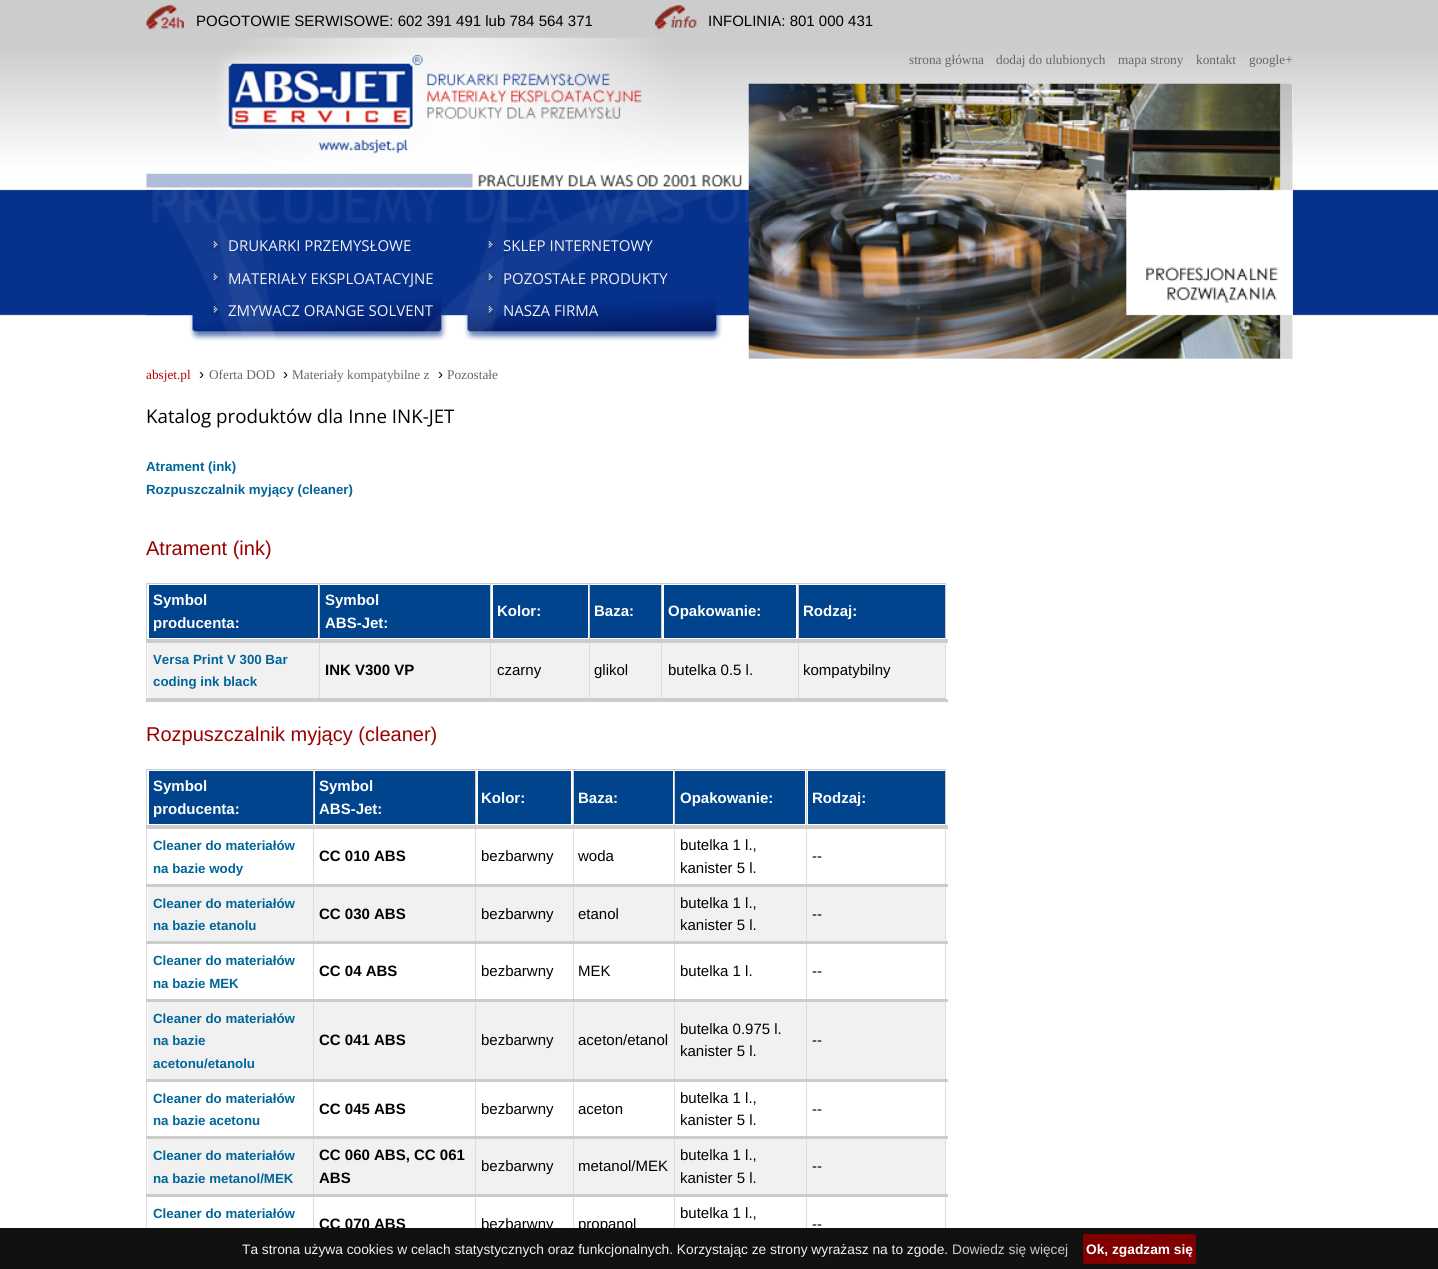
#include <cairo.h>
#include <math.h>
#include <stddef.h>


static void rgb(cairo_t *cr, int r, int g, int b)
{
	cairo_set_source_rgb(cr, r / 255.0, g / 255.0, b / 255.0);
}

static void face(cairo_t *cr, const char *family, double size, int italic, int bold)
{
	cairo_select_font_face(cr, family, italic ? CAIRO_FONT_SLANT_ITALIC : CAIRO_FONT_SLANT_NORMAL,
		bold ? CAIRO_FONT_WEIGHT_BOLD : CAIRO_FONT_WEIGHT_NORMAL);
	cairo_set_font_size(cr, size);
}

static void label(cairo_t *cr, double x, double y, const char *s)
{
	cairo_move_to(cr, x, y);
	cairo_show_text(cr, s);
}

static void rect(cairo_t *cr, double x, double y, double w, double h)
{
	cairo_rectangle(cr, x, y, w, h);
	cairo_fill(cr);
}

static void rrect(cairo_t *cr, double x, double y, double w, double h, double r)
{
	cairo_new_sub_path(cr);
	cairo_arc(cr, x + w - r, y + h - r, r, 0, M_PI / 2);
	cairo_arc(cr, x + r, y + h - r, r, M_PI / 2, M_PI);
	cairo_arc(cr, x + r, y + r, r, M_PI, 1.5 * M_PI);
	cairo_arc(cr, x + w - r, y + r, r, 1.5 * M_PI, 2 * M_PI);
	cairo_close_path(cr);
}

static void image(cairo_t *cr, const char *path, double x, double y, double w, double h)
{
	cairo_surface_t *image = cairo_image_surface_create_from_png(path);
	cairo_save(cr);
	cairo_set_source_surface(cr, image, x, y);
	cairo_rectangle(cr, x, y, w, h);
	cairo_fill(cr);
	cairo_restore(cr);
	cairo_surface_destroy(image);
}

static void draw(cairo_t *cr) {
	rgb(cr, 255, 255, 255);
	cairo_paint(cr);
	rgb(cr, 204, 204, 204);
	rect(cr, 0, 0, 1438, 38);
	image(cr, "image0.png", 146, 5, 38, 25);
	face(cr, "Liberation Sans", 15, 0, 0);
	rgb(cr, 0, 0, 0);
	label(cr, 196, 26, "POGOTOWIE SERWISOWE: 602 391 491 lub 784 564 371");
	image(cr, "image1.png", 655, 5, 42, 25);
	label(cr, 708, 26, "INFOLINIA: 801 000 431");
	image(cr, "image2.png", 0, 38, 1438, 321);
	face(cr, "Liberation Serif", 13.3, 0, 0);
	rgb(cr, 102, 102, 102);
	label(cr, 909, 64, "strona główna");
	label(cr, 996, 64, "dodaj do ulubionych");
	label(cr, 1118, 64, "mapa strony");
	label(cr, 1196, 64, "kontakt");
	label(cr, 1249, 64, "google+");
	rgb(cr, 241, 241, 241);
	rect(cr, 749, 84, 544, 275);
	image(cr, "image5.png", 146, 190, 603, 151);
	image(cr, "image3.png", 748, 83, 545, 276);
	image(cr, "image4.png", 146, 37, 596, 151);
	image(cr, "image6.png", 211, 240, 8, 11);
	face(cr, "Open Sans", 15, 0, 0);
	label(cr, 228, 251, "DRUKARKI PRZEMYSŁOWE");
	image(cr, "image7.png", 211, 272, 8, 12);
	label(cr, 228, 284, "MATERIAŁY EKSPLOATACYJNE");
	image(cr, "image8.png", 211, 305, 8, 11);
	label(cr, 228, 316, "ZMYWACZ ORANGE SOLVENT");
	image(cr, "image9.png", 486, 240, 8, 11);
	label(cr, 503, 251, "SKLEP INTERNETOWY");
	image(cr, "image10.png", 486, 272, 8, 12);
	label(cr, 503, 284, "POZOSTAŁE PRODUKTY");
	image(cr, "image11.png", 486, 305, 8, 11);
	label(cr, 503, 316, "NASZA FIRMA");
	face(cr, "Liberation Serif", 13.3, 0, 0);
	rgb(cr, 179, 0, 0);
	label(cr, 146, 379, "absjet.pl");
	face(cr, "Liberation Sans", 15, 0, 0);
	rgb(cr, 0, 0, 0);
	label(cr, 199, 379, "›");
	face(cr, "Liberation Serif", 13.3, 0, 0);
	rgb(cr, 102, 102, 102);
	label(cr, 209, 379, "Oferta DOD");
	face(cr, "Liberation Sans", 15, 0, 0);
	rgb(cr, 0, 0, 0);
	label(cr, 283, 379, "›");
	face(cr, "Liberation Serif", 13.3, 0, 0);
	rgb(cr, 102, 102, 102);
	label(cr, 292, 379, "Materiały kompatybilne z");
	face(cr, "Liberation Sans", 15, 0, 0);
	rgb(cr, 0, 0, 0);
	label(cr, 438, 379, "›");
	face(cr, "Liberation Serif", 13.3, 0, 0);
	rgb(cr, 102, 102, 102);
	label(cr, 447, 379, "Pozostałe");
	face(cr, "Open Sans", 18.75, 0, 0);
	rgb(cr, 0, 0, 0);
	label(cr, 146, 423, "Katalog produktów dla Inne INK-JET");
	face(cr, "Liberation Sans", 13.3, 0, 1);
	rgb(cr, 0, 102, 153);
	label(cr, 146, 471, "Atrament (ink)");
	label(cr, 146, 494, "Rozpuszczalnik myjący (cleaner)");
	face(cr, "Liberation Sans", 20, 0, 0);
	rgb(cr, 153, 0, 0);
	label(cr, 146, 555, "Atrament (ink)");
	rgb(cr, 204, 204, 204);
	rect(cr, 146, 583, 800, 1);
	rgb(cr, 241, 241, 241);
	rect(cr, 148, 643, 797, 55);
	rgb(cr, 221, 221, 221);
	rect(cr, 319, 640, 1, 60);
	rect(cr, 146, 640, 1, 60);
	rect(cr, 490, 640, 1, 60);
	rect(cr, 589, 640, 1, 60);
	rect(cr, 661, 640, 1, 60);
	rect(cr, 798, 640, 1, 60);
	rect(cr, 945, 640, 1, 60);
	rgb(cr, 204, 204, 204);
	rect(cr, 146, 698, 800, 4);
	rgb(cr, 0, 68, 142);
	rect(cr, 149, 585, 169, 53);
	rgb(cr, 204, 204, 204);
	rect(cr, 146, 583, 1, 58);
	face(cr, "Liberation Sans", 15, 0, 1);
	rgb(cr, 255, 255, 255);
	label(cr, 153, 605, "Symbol");
	label(cr, 153, 628, "producenta:");
	rgb(cr, 0, 68, 142);
	rect(cr, 320, 585, 170, 53);
	rgb(cr, 204, 204, 204);
	rect(cr, 319, 583, 1, 58);
	rgb(cr, 255, 255, 255);
	label(cr, 325, 605, "Symbol");
	label(cr, 325, 628, "ABS-Jet:");
	rgb(cr, 0, 68, 142);
	rect(cr, 493, 585, 95, 53);
	rgb(cr, 204, 204, 204);
	rect(cr, 490, 583, 1, 58);
	rgb(cr, 255, 255, 255);
	label(cr, 497, 616, "Kolor:");
	rgb(cr, 0, 68, 142);
	rect(cr, 590, 585, 71, 53);
	rgb(cr, 204, 204, 204);
	rect(cr, 589, 583, 1, 58);
	rgb(cr, 255, 255, 255);
	label(cr, 594, 616, "Baza:");
	rgb(cr, 0, 68, 142);
	rect(cr, 664, 585, 132, 53);
	rgb(cr, 204, 204, 204);
	rect(cr, 661, 583, 1, 58);
	rgb(cr, 255, 255, 255);
	label(cr, 668, 616, "Opakowanie:");
	rgb(cr, 0, 68, 142);
	rect(cr, 799, 585, 146, 53);
	rgb(cr, 204, 204, 204);
	rect(cr, 945, 583, 1, 58);
	rect(cr, 798, 583, 1, 58);
	rect(cr, 146, 639, 802, 4);
	rgb(cr, 255, 255, 255);
	label(cr, 803, 616, "Rodzaj:");
	face(cr, "Liberation Sans", 13.3, 0, 1);
	rgb(cr, 0, 102, 153);
	label(cr, 153, 664, "Versa Print V 300 Bar");
	label(cr, 153, 686, "coding ink black");
	face(cr, "Liberation Sans", 15, 0, 1);
	rgb(cr, 0, 0, 0);
	label(cr, 325, 675, "INK V300 VP");
	face(cr, "Liberation Sans", 15, 0, 0);
	label(cr, 497, 675, "czarny");
	label(cr, 594, 675, "glikol");
	label(cr, 668, 675, "butelka 0.5 l.");
	rgb(cr, 204, 204, 204);
	rect(cr, 946, 699, 2, 3);
	rgb(cr, 0, 0, 0);
	label(cr, 803, 675, "kompatybilny");
	face(cr, "Liberation Sans", 20, 0, 0);
	rgb(cr, 153, 0, 0);
	label(cr, 146, 741, "Rozpuszczalnik myjący (cleaner)");
	rgb(cr, 204, 204, 204);
	rect(cr, 146, 769, 800, 1);
	rgb(cr, 0, 68, 142);
	rect(cr, 149, 771, 164, 53);
	rgb(cr, 221, 221, 221);
	rect(cr, 146, 826, 1, 402);
	rgb(cr, 204, 204, 204);
	rect(cr, 146, 769, 1, 59);
	face(cr, "Liberation Sans", 15, 0, 1);
	rgb(cr, 255, 255, 255);
	label(cr, 153, 791, "Symbol");
	label(cr, 153, 814, "producenta:");
	rgb(cr, 0, 68, 142);
	rect(cr, 315, 771, 160, 53);
	rgb(cr, 241, 241, 241);
	rect(cr, 148, 887, 797, 54);
	rect(cr, 148, 1002, 797, 77);
	rect(cr, 148, 1139, 797, 55);
	rgb(cr, 221, 221, 221);
	rect(cr, 313, 826, 1, 402);
	rgb(cr, 204, 204, 204);
	rect(cr, 313, 769, 1, 59);
	rgb(cr, 255, 255, 255);
	label(cr, 319, 791, "Symbol");
	label(cr, 319, 814, "ABS-Jet:");
	rgb(cr, 0, 68, 142);
	rect(cr, 478, 771, 93, 53);
	rgb(cr, 221, 221, 221);
	rect(cr, 475, 826, 1, 402);
	rgb(cr, 204, 204, 204);
	rect(cr, 475, 769, 1, 59);
	rgb(cr, 255, 255, 255);
	label(cr, 481, 803, "Kolor:");
	rgb(cr, 0, 68, 142);
	rect(cr, 574, 771, 99, 53);
	rgb(cr, 221, 221, 221);
	rect(cr, 573, 826, 1, 402);
	rgb(cr, 204, 204, 204);
	rect(cr, 573, 769, 1, 59);
	rgb(cr, 255, 255, 255);
	label(cr, 578, 803, "Baza:");
	rgb(cr, 0, 68, 142);
	rect(cr, 675, 771, 130, 53);
	rgb(cr, 221, 221, 221);
	rect(cr, 674, 826, 1, 402);
	rgb(cr, 204, 204, 204);
	rect(cr, 674, 769, 1, 59);
	rgb(cr, 255, 255, 255);
	label(cr, 680, 803, "Opakowanie:");
	rgb(cr, 0, 68, 142);
	rect(cr, 808, 771, 137, 53);
	rgb(cr, 221, 221, 221);
	rect(cr, 945, 826, 1, 402);
	rgb(cr, 204, 204, 204);
	rect(cr, 945, 769, 1, 59);
	rgb(cr, 221, 221, 221);
	rect(cr, 806, 826, 1, 402);
	rgb(cr, 204, 204, 204);
	rect(cr, 806, 769, 1, 59);
	rect(cr, 146, 825, 802, 4);
	rgb(cr, 255, 255, 255);
	label(cr, 812, 803, "Rodzaj:");
	face(cr, "Liberation Sans", 13.3, 0, 1);
	rgb(cr, 0, 102, 153);
	label(cr, 153, 850, "Cleaner do materiałów");
	label(cr, 153, 873, "na bazie wody");
	face(cr, "Liberation Sans", 15, 0, 1);
	rgb(cr, 0, 0, 0);
	label(cr, 319, 861, "CC 010 ABS");
	face(cr, "Liberation Sans", 15, 0, 0);
	label(cr, 481, 861, "bezbarwny");
	label(cr, 578, 861, "woda");
	label(cr, 680, 850, "butelka 1 l.,");
	label(cr, 680, 873, "kanister 5 l.");
	rgb(cr, 204, 204, 204);
	rect(cr, 146, 884, 802, 3);
	rgb(cr, 0, 0, 0);
	label(cr, 812, 861, "--");
	face(cr, "Liberation Sans", 13.3, 0, 1);
	rgb(cr, 0, 102, 153);
	label(cr, 153, 908, "Cleaner do materiałów");
	label(cr, 153, 930, "na bazie etanolu");
	face(cr, "Liberation Sans", 15, 0, 1);
	rgb(cr, 0, 0, 0);
	label(cr, 319, 919, "CC 030 ABS");
	face(cr, "Liberation Sans", 15, 0, 0);
	label(cr, 481, 919, "bezbarwny");
	label(cr, 578, 919, "etanol");
	label(cr, 680, 908, "butelka 1 l.,");
	label(cr, 680, 930, "kanister 5 l.");
	rgb(cr, 204, 204, 204);
	rect(cr, 146, 941, 802, 3);
	rgb(cr, 0, 0, 0);
	label(cr, 812, 919, "--");
	face(cr, "Liberation Sans", 13.3, 0, 1);
	rgb(cr, 0, 102, 153);
	label(cr, 153, 965, "Cleaner do materiałów");
	label(cr, 153, 988, "na bazie MEK");
	face(cr, "Liberation Sans", 15, 0, 1);
	rgb(cr, 0, 0, 0);
	label(cr, 319, 976, "CC 04 ABS");
	face(cr, "Liberation Sans", 15, 0, 0);
	label(cr, 481, 976, "bezbarwny");
	label(cr, 578, 976, "MEK");
	label(cr, 680, 976, "butelka 1 l.");
	rgb(cr, 204, 204, 204);
	rect(cr, 146, 999, 802, 3);
	rgb(cr, 0, 0, 0);
	label(cr, 812, 976, "--");
	face(cr, "Liberation Sans", 13.3, 0, 1);
	rgb(cr, 0, 102, 153);
	label(cr, 153, 1023, "Cleaner do materiałów");
	label(cr, 153, 1045, "na bazie");
	label(cr, 153, 1068, "acetonu/etanolu");
	face(cr, "Liberation Sans", 15, 0, 1);
	rgb(cr, 0, 0, 0);
	label(cr, 319, 1045, "CC 041 ABS");
	face(cr, "Liberation Sans", 15, 0, 0);
	label(cr, 481, 1045, "bezbarwny");
	label(cr, 578, 1045, "aceton/etanol");
	label(cr, 680, 1034, "butelka 0.975 l.");
	label(cr, 680, 1056, "kanister 5 l.");
	rgb(cr, 204, 204, 204);
	rect(cr, 146, 1079, 802, 3);
	rgb(cr, 0, 0, 0);
	label(cr, 812, 1045, "--");
	face(cr, "Liberation Sans", 13.3, 0, 1);
	rgb(cr, 0, 102, 153);
	label(cr, 153, 1103, "Cleaner do materiałów");
	label(cr, 153, 1125, "na bazie acetonu");
	face(cr, "Liberation Sans", 15, 0, 1);
	rgb(cr, 0, 0, 0);
	label(cr, 319, 1114, "CC 045 ABS");
	face(cr, "Liberation Sans", 15, 0, 0);
	label(cr, 481, 1114, "bezbarwny");
	label(cr, 578, 1114, "aceton");
	label(cr, 680, 1103, "butelka 1 l.,");
	label(cr, 680, 1125, "kanister 5 l.");
	rgb(cr, 204, 204, 204);
	rect(cr, 146, 1136, 802, 3);
	rgb(cr, 0, 0, 0);
	label(cr, 812, 1114, "--");
	face(cr, "Liberation Sans", 13.3, 0, 1);
	rgb(cr, 0, 102, 153);
	label(cr, 153, 1160, "Cleaner do materiałów");
	label(cr, 153, 1183, "na bazie metanol/MEK");
	face(cr, "Liberation Sans", 15, 0, 1);
	rgb(cr, 0, 0, 0);
	label(cr, 319, 1160, "CC 060 ABS, CC 061");
	label(cr, 319, 1183, "ABS");
	face(cr, "Liberation Sans", 15, 0, 0);
	label(cr, 481, 1171, "bezbarwny");
	label(cr, 578, 1171, "metanol/MEK");
	label(cr, 680, 1160, "butelka 1 l.,");
	label(cr, 680, 1183, "kanister 5 l.");
	rgb(cr, 204, 204, 204);
	rect(cr, 146, 1194, 802, 3);
	rgb(cr, 0, 0, 0);
	label(cr, 812, 1171, "--");
	face(cr, "Liberation Sans", 13.3, 0, 1);
	rgb(cr, 0, 102, 153);
	label(cr, 153, 1218, "Cleaner do materiałów");
	face(cr, "Liberation Sans", 15, 0, 0);
	rgb(cr, 0, 0, 0);
	label(cr, 680, 1218, "butelka 1 l.,");
	face(cr, "Liberation Sans", 15, 0, 1);
	label(cr, 319, 1229, "CC 070 ABS");
	face(cr, "Liberation Sans", 15, 0, 0);
	label(cr, 481, 1229, "bezbarwny");
	label(cr, 578, 1229, "propanol");
	label(cr, 812, 1229, "--");
	rgb(cr, 17, 17, 17);
	rect(cr, 0, 1228, 1438, 41);
	face(cr, "Liberation Sans", 13.75, 0, 0);
	rgb(cr, 241, 241, 241);
	label(cr, 242, 1254, "Ta strona używa cookies w celach statystycznych oraz funkcjonalnych. Korzystając ze strony wyrażasz na to zgode.");
	rgb(cr, 204, 204, 204);
	label(cr, 952, 1254, "Dowiedz się więcej");
	rgb(cr, 128, 0, 0);
	rrect(cr, 1083, 1234, 113, 30, 2.5);
	cairo_fill(cr);
	face(cr, "Liberation Sans", 13.75, 0, 1);
	rgb(cr, 255, 255, 255);
	label(cr, 1086, 1254, "Ok, zgadzam się");
}

int main(void) {
	cairo_surface_t *surface = cairo_image_surface_create(CAIRO_FORMAT_RGB24, 1438, 1269);
	cairo_t *cr = cairo_create(surface);
	cairo_font_options_t *options = cairo_font_options_create();
	cairo_font_options_set_hint_metrics(options, CAIRO_HINT_METRICS_OFF);
	cairo_font_options_set_hint_style(options, CAIRO_HINT_STYLE_NONE);
	cairo_set_font_options(cr, options);
	cairo_set_miter_limit(cr, 4);
	draw(cr);
	cairo_surface_write_to_png(surface, "render.png");
	cairo_font_options_destroy(options);
	cairo_destroy(cr);
	cairo_surface_destroy(surface);
	return 0;
}
